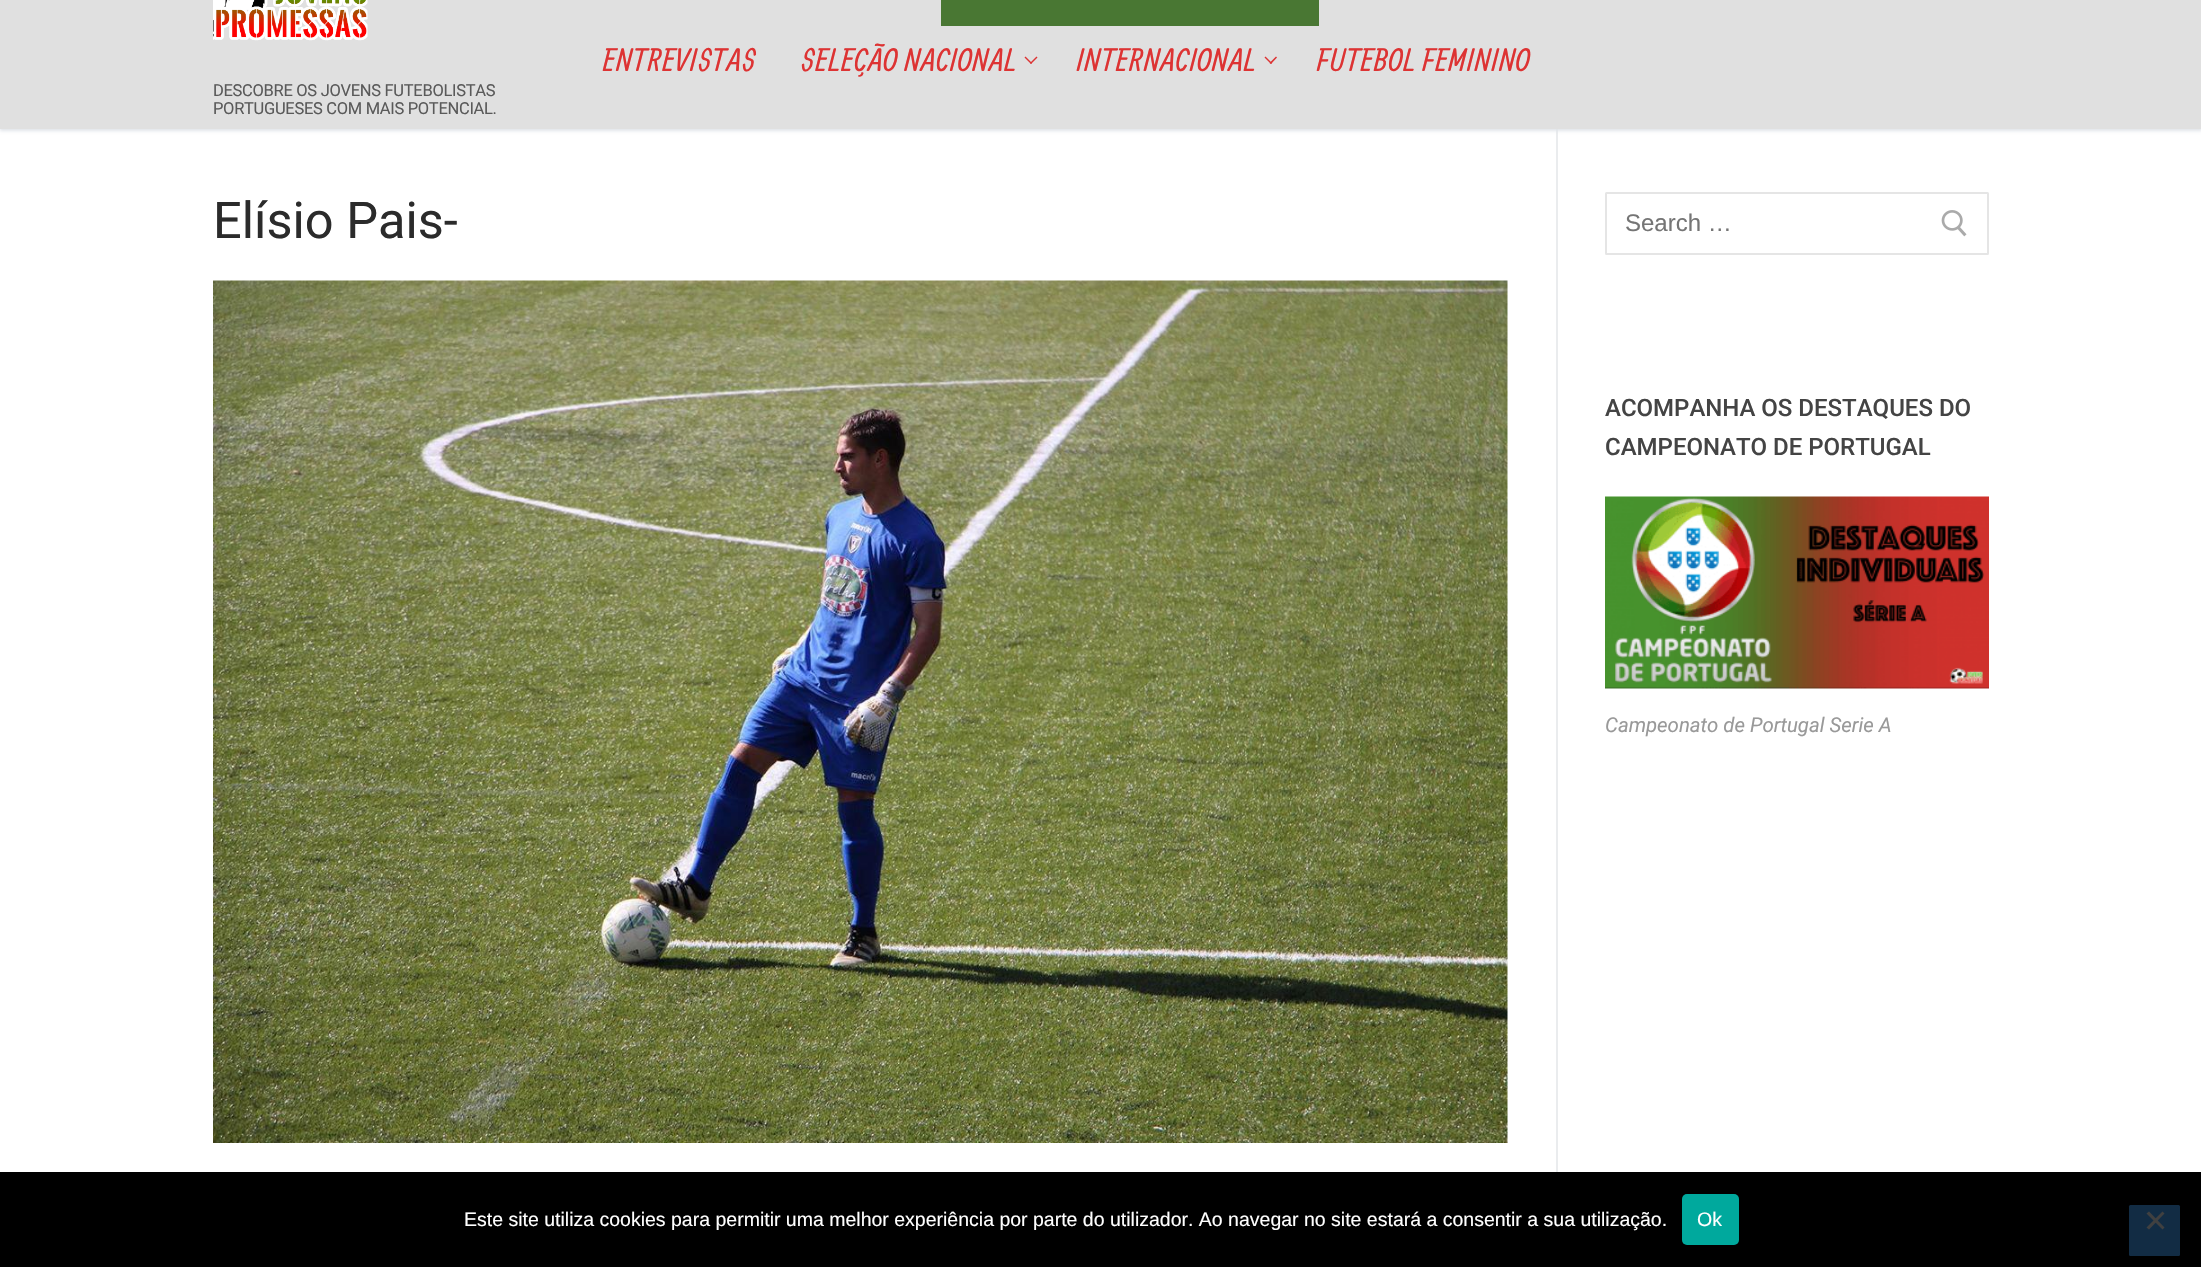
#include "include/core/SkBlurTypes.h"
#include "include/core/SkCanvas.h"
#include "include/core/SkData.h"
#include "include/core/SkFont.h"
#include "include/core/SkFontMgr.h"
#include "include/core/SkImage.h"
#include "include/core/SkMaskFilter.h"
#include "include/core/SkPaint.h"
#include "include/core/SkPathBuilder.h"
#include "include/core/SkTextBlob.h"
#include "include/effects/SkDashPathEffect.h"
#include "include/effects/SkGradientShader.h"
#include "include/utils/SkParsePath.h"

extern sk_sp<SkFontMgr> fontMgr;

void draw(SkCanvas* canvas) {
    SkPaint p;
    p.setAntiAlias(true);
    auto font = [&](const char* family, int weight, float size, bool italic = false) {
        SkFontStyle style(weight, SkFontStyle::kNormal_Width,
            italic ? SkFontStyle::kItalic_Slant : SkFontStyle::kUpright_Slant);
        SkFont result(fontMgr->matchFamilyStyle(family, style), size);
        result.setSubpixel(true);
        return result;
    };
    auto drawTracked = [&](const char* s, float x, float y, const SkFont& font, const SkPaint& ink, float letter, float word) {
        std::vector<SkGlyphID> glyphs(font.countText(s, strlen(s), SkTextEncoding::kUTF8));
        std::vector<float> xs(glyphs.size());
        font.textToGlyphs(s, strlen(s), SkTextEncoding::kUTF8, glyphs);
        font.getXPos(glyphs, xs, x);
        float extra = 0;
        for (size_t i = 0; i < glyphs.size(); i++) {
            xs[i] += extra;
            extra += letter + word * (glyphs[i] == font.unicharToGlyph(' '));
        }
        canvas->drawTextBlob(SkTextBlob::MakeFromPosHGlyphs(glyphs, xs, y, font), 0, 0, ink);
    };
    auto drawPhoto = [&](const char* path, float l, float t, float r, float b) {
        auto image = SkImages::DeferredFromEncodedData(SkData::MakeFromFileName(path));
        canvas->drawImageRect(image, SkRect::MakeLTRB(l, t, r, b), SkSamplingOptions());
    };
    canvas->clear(0xFFFFFFFF);
    p.setColor(0xFFEAECEE);
    canvas->drawRect(SkRect::MakeLTRB(1556, 129, 1558, 1172), p);
    p.setColor(0xFFE1E5EA);
    p.setMaskFilter(SkMaskFilter::MakeBlur(kNormal_SkBlurStyle, 1.5f));
    canvas->drawRect(SkRect::MakeLTRB(0, -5, 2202, 131), p);
    p.setMaskFilter(nullptr);
    p.setColor(0xFFE0E0E0);
    canvas->drawRect(SkRect::MakeLTRB(0, 0, 2201, 129), p);
    p.setColor(0xFF497733);
    canvas->drawRect(SkRect::MakeLTRB(941, 0, 1319, 26), p);
    auto font1 = font("Allan", 400, 31.5f);
    p.setColor(0xFFDD3333);
    drawTracked("ENTREVISTAS", 603, 71, font1, p, 0.6f, 0);
    drawTracked("SELEÇÃO NACIONAL", 801, 71, font1, p, 0.6f, 0);
    canvas->drawPath(SkPathBuilder().moveTo(1031, 64).lineTo(1024.5f, 57.5f).lineTo(1025.5f, 56.5f).lineTo(1032, 63).close().detach(), p);
    canvas->drawPath(SkPathBuilder().moveTo(1031, 64).lineTo(1030, 63).lineTo(1036.5f, 56.5f).lineTo(1037.5f, 57.5f).close().detach(), p);
    drawTracked("INTERNACIONAL", 1077, 71, font1, p, 0.6f, 0);
    canvas->drawPath(SkPathBuilder().moveTo(1271, 64).lineTo(1264.5f, 57.5f).lineTo(1265.5f, 56.5f).lineTo(1272, 63).close().detach(), p);
    canvas->drawPath(SkPathBuilder().moveTo(1271, 64).lineTo(1269.5f, 63).lineTo(1276, 56.5f).lineTo(1277, 57.5f).close().detach(), p);
    drawTracked("FUTEBOL FEMININO", 1317, 71, font1, p, 0.6f, 0);
    drawPhoto("media/1.png", 213, 0, 368, 41);
    auto font2 = font("Roboto", 400, 16.5f);
    p.setColor(0xFF5A5A5A);
    drawTracked("DESCOBRE OS JOVENS FUTEBOLISTAS", 213, 96, font2, p, -0.3f, 0);
    drawTracked("PORTUGUESES COM MAIS POTENCIAL.", 213, 114, font2, p, -0.3f, 0);
    auto font3 = font("Roboto", 400, 50.5f);
    p.setColor(0xFF2B2B2B);
    canvas->drawString("Elísio Pais-", 213, 238, font3, p);
    drawPhoto("media/2.png", 213, 280, 1508, 1143);
    p.setStyle(SkPaint::kStroke_Style);
    p.setStrokeWidth(2);
    p.setColor(0xFFE5E5E5);
    canvas->drawRoundRect(SkRect::MakeLTRB(1606, 193, 1988, 254), 0.5f, 0.5f, p);
    auto font4 = font("Liberation Sans", 400, 24);
    p.setStyle(SkPaint::kFill_Style);
    p.setColor(0xFF757575);
    canvas->drawString("Search …", 1625, 231, font4, p);
    drawPhoto("media/3.png", 1941, 210, 1967, 237);
    auto font5 = font("Roboto", 500, 24);
    p.setColor(0xFF444444);
    canvas->drawString("ACOMPANHA OS DESTAQUES DO", 1605, 416, font5, p);
    canvas->drawString("CAMPEONATO DE PORTUGAL", 1605, 455, font5, p);
    drawPhoto("media/4.png", 1605, 496, 1989, 689);
    auto font6 = font("Roboto", 400, 20.4f, true);
    p.setColor(0xFF999999);
    canvas->drawString("Campeonato de Portugal Serie A", 1605, 732, font6, p);
    p.setColor(0xFF000000);
    canvas->drawRect(SkRect::MakeLTRB(0, 1172, 2201, 1267), p);
    auto font7 = font("Liberation Sans", 400, 19.5f);
    p.setColor(0xFFFFFFFF);
    canvas->drawString("Este site utiliza cookies para permitir uma melhor experiência por parte do utilizador. Ao navegar no site estará a consentir a sua utilização.", 464, 1226, font7, p);
    p.setColor(0xFF00A99D);
    canvas->drawRoundRect(SkRect::MakeLTRB(1682, 1194, 1739, 1245), 5, 5, p);
    p.setColor(0xFFFFFFFF);
    canvas->drawString("Ok", 1697, 1226, font7, p);
    p.setColor(0xFF122C44);
    canvas->drawRoundRect(SkRect::MakeLTRB(2129, 1205, 2180, 1256), 1.5f, 1.5f, p);
    p.setColor(0xFF404040);
    canvas->drawPath(SkPathBuilder().moveTo(2162.5f, 1211.5f).lineTo(2164.5f, 1213.5f).lineTo(2149, 1229.5f).lineTo(2146.5f, 1227.5f).close().detach(), p);
    canvas->drawPath(SkPathBuilder().moveTo(2146.5f, 1213.5f).lineTo(2149, 1211.5f).lineTo(2164.5f, 1227.5f).lineTo(2162.5f, 1229.5f).close().detach(), p);
}
